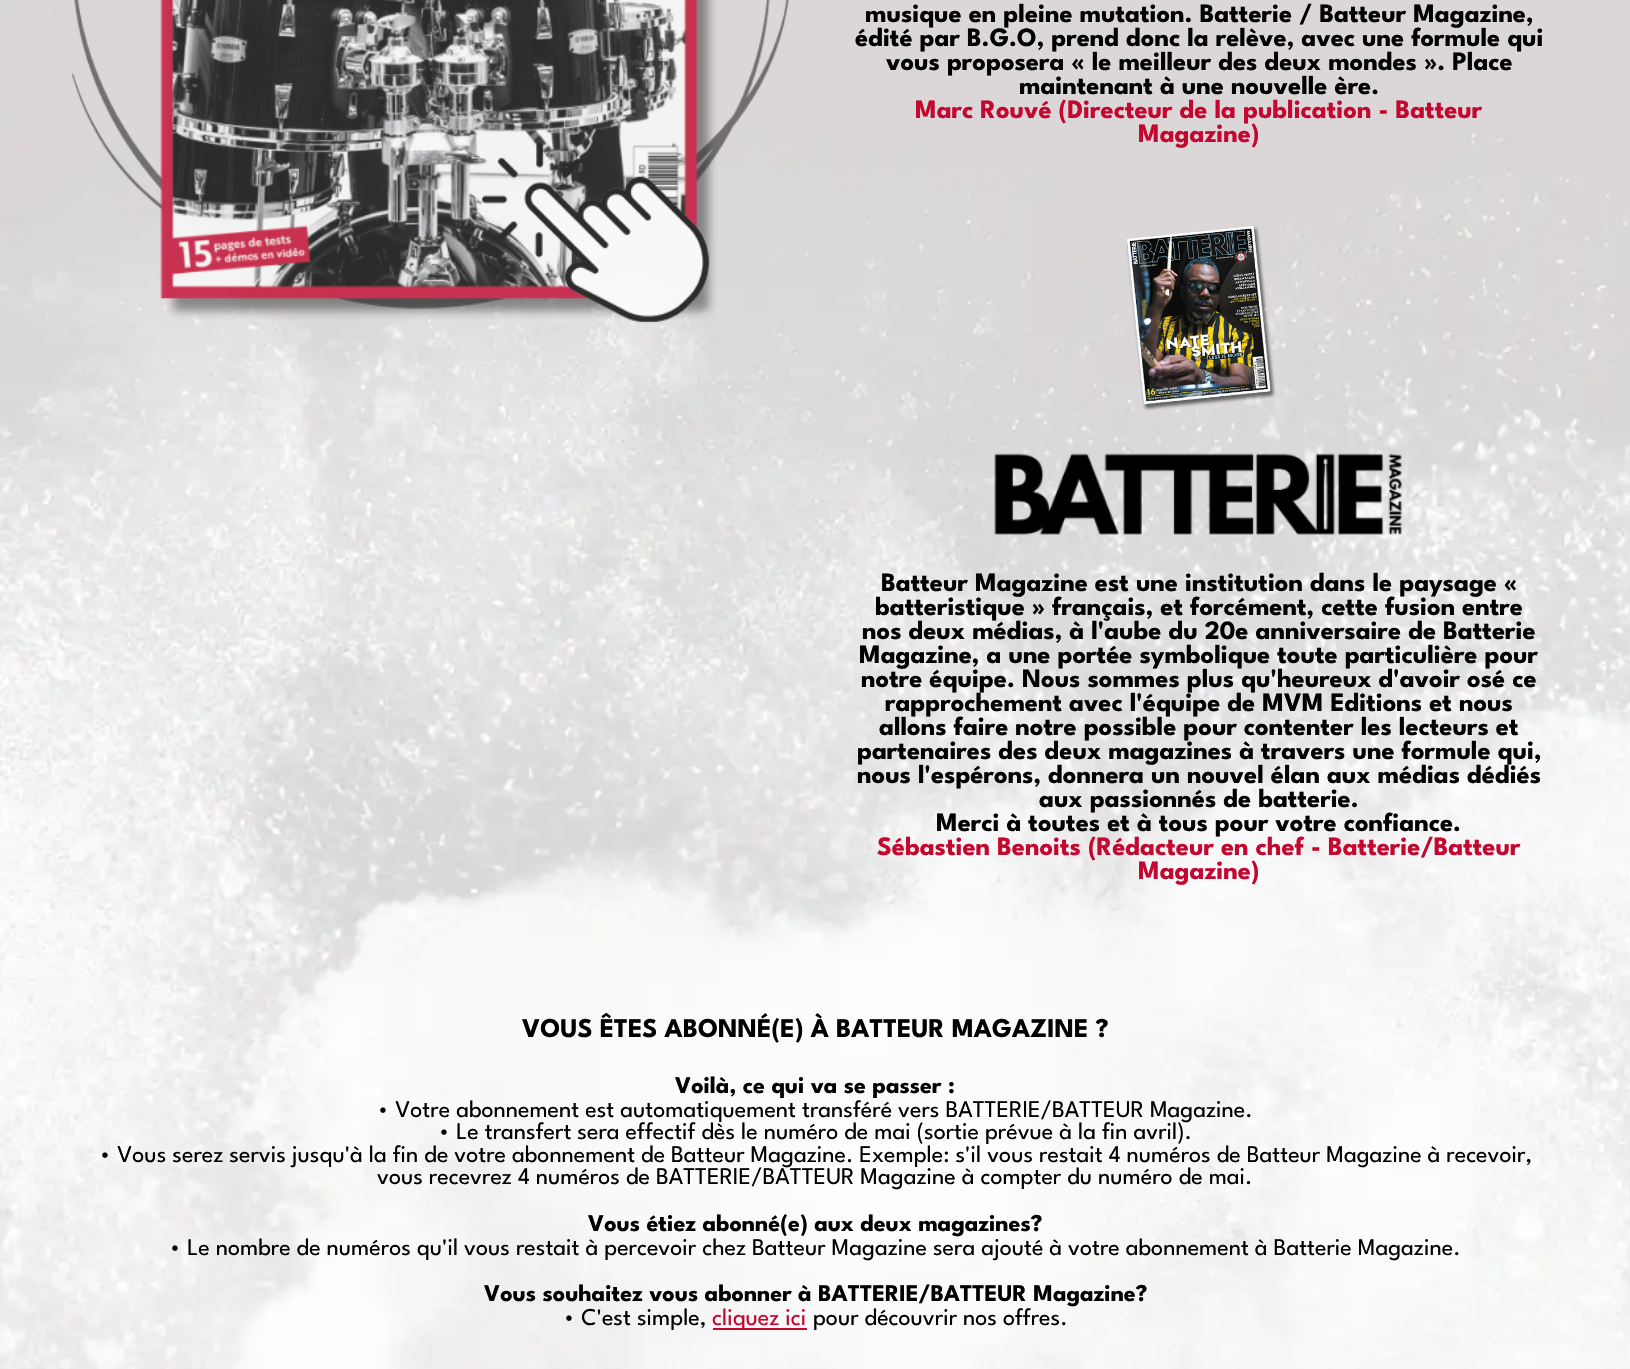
#include "include/core/SkBlurTypes.h"
#include "include/core/SkCanvas.h"
#include "include/core/SkData.h"
#include "include/core/SkFont.h"
#include "include/core/SkFontMgr.h"
#include "include/core/SkImage.h"
#include "include/core/SkMaskFilter.h"
#include "include/core/SkPaint.h"
#include "include/core/SkPathBuilder.h"
#include "include/core/SkTextBlob.h"
#include "include/effects/SkDashPathEffect.h"
#include "include/effects/SkGradientShader.h"
#include "include/utils/SkParsePath.h"

extern sk_sp<SkFontMgr> fontMgr;

void draw(SkCanvas* canvas) {
    SkPaint p;
    p.setAntiAlias(true);
    auto font = [&](const char* family, int weight, float size, bool italic = false) {
        SkFontStyle style(weight, SkFontStyle::kNormal_Width,
            italic ? SkFontStyle::kItalic_Slant : SkFontStyle::kUpright_Slant);
        SkFont result(fontMgr->matchFamilyStyle(family, style), size);
        result.setSubpixel(true);
        return result;
    };
    auto drawPhoto = [&](const char* path, float l, float t, float r, float b) {
        auto image = SkImages::DeferredFromEncodedData(SkData::MakeFromFileName(path));
        canvas->drawImageRect(image, SkRect::MakeLTRB(l, t, r, b), SkSamplingOptions());
    };
    canvas->clear(0xFFFFFFFF);
    drawPhoto("media/1.png", 0, 0, 1630, 1369);
    drawPhoto("media/2.png", 72, 0, 790, 323);
    auto font1 = font("League Spartan", 700, 26.4f);
    p.setColor(0xFF000000);
    {
        const struct { const char* s; float x, y; } items[] = {
            {"musique en pleine mutation. Batterie / Batteur Magazine,", 865, 22},
            {"édité par B.G.O, prend donc la relève, avec une formule qui", 855, 46},
            {"vous proposera « le meilleur des deux mondes ». Place", 886, 70},
            {"maintenant à une nouvelle ère.", 1019, 94},
        };
        for (auto [s, x, y] : items) {
            canvas->drawString(s, x, y, font1, p);
        }
    }
    p.setColor(0xFFC4072F);
    canvas->drawString("Marc Rouvé (Directeur de la publication - Batteur", 915, 118, font1, p);
    canvas->drawString("Magazine)", 1138, 142, font1, p);
    drawPhoto("media/3.png", 1126, 225, 1276, 411);
    drawPhoto("media/4.png", 994, 453, 1402, 535);
    p.setColor(0xFF000000);
    {
        const struct { const char* s; float x, y; } items[] = {
            {"Batteur Magazine est une institution dans le paysage «", 881, 591},
            {"batteristique » français, et forcément, cette fusion entre", 875, 615},
            {"nos deux médias, à l'aube du 20e anniversaire de Batterie", 862, 639},
            {"Magazine, a une portée symbolique toute particulière pour", 859, 663},
            {"notre équipe. Nous sommes plus qu'heureux d'avoir osé ce", 861, 687},
            {"rapprochement avec l'équipe de MVM Editions et nous", 885, 711},
            {"allons faire notre possible pour contenter les lecteurs et", 879, 735},
            {"partenaires des deux magazines à travers une formule qui,", 857, 759},
            {"nous l'espérons, donnera un nouvel élan aux médias dédiés", 857, 783},
            {"aux passionnés de batterie.", 1039, 807},
            {"Merci à toutes et à tous pour votre confiance.", 936, 831},
        };
        for (auto [s, x, y] : items) {
            canvas->drawString(s, x, y, font1, p);
        }
    }
    p.setColor(0xFFC4072F);
    canvas->drawString("Sébastien Benoits (Rédacteur en chef - Batterie/Batteur", 877, 855, font1, p);
    canvas->drawString("Magazine)", 1138, 879, font1, p);
    auto font2 = font("League Spartan", 700, 27);
    p.setColor(0xFF000000);
    canvas->drawString("VOUS ÊTES ABONNÉ(E) À BATTEUR MAGAZINE ?", 522, 1037, font2, p);
    auto font3 = font("League Spartan", 700, 24);
    canvas->drawString("Voilà, ce qui va se passer :", 675, 1093, font3, p);
    auto font4 = font("League Spartan", 400, 24);
    {
        const struct { const char* s; float x, y; } items[] = {
            {"• Votre abonnement est automatiquement transféré vers BATTERIE/BATTEUR Magazine.", 377, 1117},
            {"• Le transfert sera effectif dès le numéro de mai (sortie prévue à la fin avril).", 438, 1139},
            {"• Vous serez servis jusqu'à la fin de votre abonnement de Batteur Magazine. Exemple: s'il vous restait 4 numéros de Batteur Magazine à recevoir,", 99, 1162},
            {"vous recevrez 4 numéros de BATTERIE/BATTEUR Magazine à compter du numéro de mai.", 377, 1184},
        };
        for (auto [s, x, y] : items) {
            canvas->drawString(s, x, y, font4, p);
        }
    }
    canvas->drawString("Vous étiez abonné(e) aux deux magazines?", 588, 1231, font3, p);
    canvas->drawString("• Le nombre de numéros qu'il vous restait à percevoir chez Batteur Magazine sera ajouté à votre abonnement à Batterie Magazine.", 169, 1255, font4, p);
    canvas->drawString("Vous souhaitez vous abonner à BATTERIE/BATTEUR Magazine?", 484, 1301, font3, p);
    canvas->drawString("• C'est simple,", 563, 1325, font4, p);
    p.setColor(0xFFC4072F);
    canvas->drawRect(SkRect::MakeLTRB(713, 1328, 807, 1330), p);
    canvas->drawString("cliquez ici", 712, 1325, font4, p);
    p.setColor(0xFF000000);
    canvas->drawString("pour découvrir nos offres.", 813, 1325, font4, p);
}
